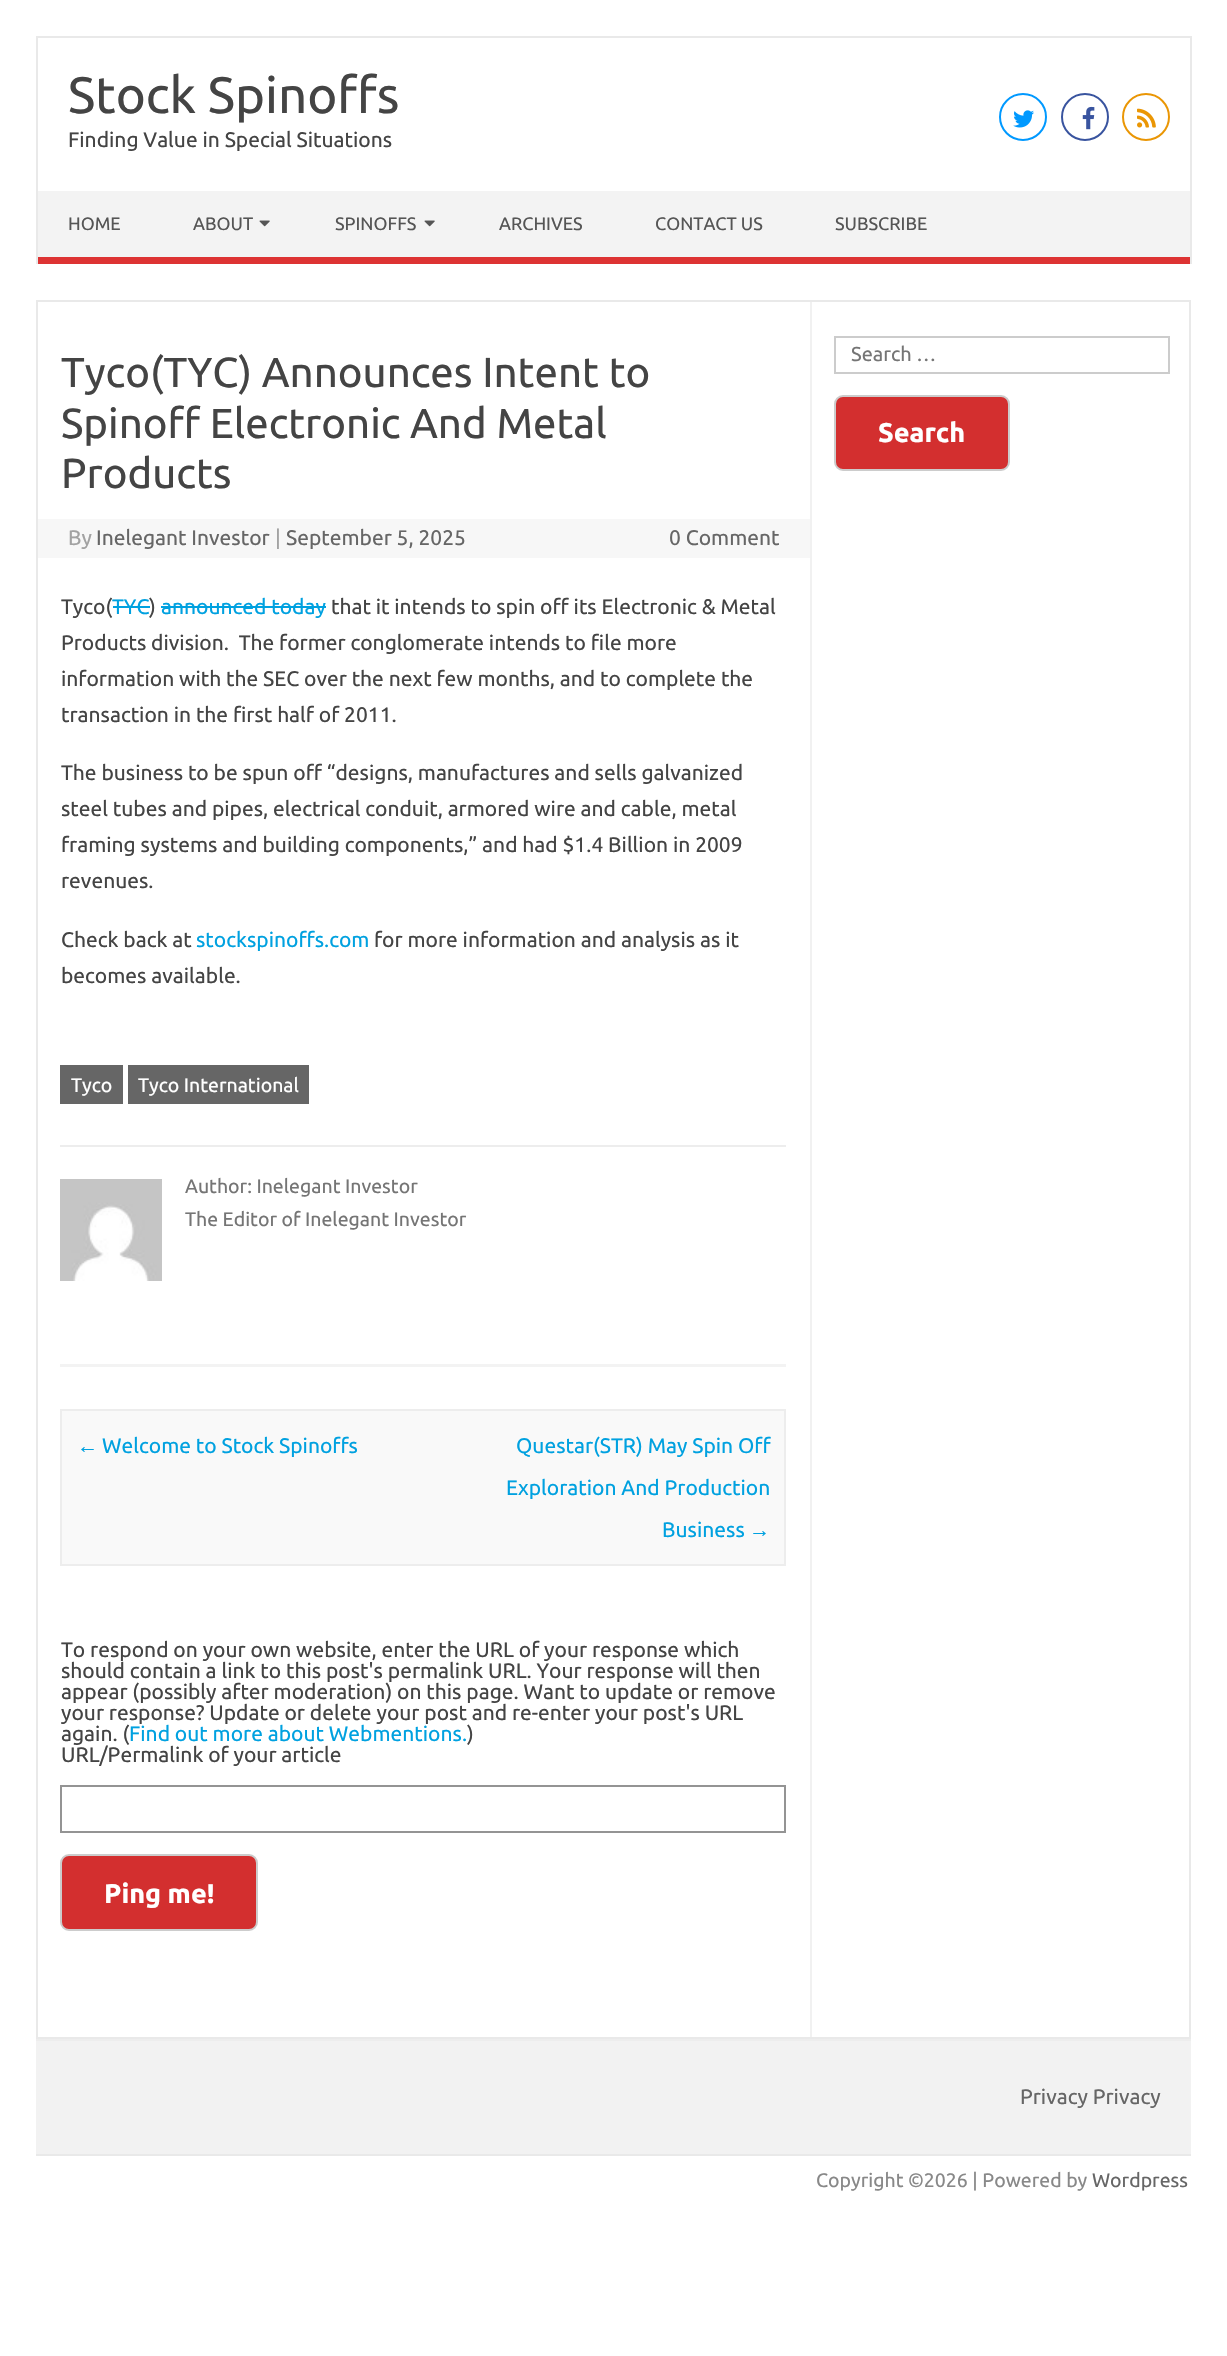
#include "include/core/SkBlurTypes.h"
#include "include/core/SkCanvas.h"
#include "include/core/SkData.h"
#include "include/core/SkFont.h"
#include "include/core/SkFontMgr.h"
#include "include/core/SkImage.h"
#include "include/core/SkMaskFilter.h"
#include "include/core/SkPaint.h"
#include "include/core/SkPathBuilder.h"
#include "include/core/SkTextBlob.h"
#include "include/effects/SkDashPathEffect.h"
#include "include/effects/SkGradientShader.h"
#include "include/utils/SkParsePath.h"

extern sk_sp<SkFontMgr> fontMgr;

void draw(SkCanvas* canvas) {
    SkPaint p;
    p.setAntiAlias(true);
    auto font = [&](const char* family, int weight, float size, bool italic = false) {
        SkFontStyle style(weight, SkFontStyle::kNormal_Width,
            italic ? SkFontStyle::kItalic_Slant : SkFontStyle::kUpright_Slant);
        SkFont result(fontMgr->matchFamilyStyle(family, style), size);
        result.setSubpixel(true);
        return result;
    };
    auto drawPhoto = [&](const char* path, float l, float t, float r, float b) {
        auto image = SkImages::DeferredFromEncodedData(SkData::MakeFromFileName(path));
        canvas->drawImageRect(image, SkRect::MakeLTRB(l, t, r, b), SkSamplingOptions());
    };
    canvas->clear(0xFFFFFFFF);
    {
        const struct { float l, t, r, b; SkColor color; } items[] = {
            {36, 36, 1191, 38, 0xFFE9E9E9},
            {1190, 36, 1192, 264, 0xFFE9E9E9},
            {36, 36, 38, 264, 0xFFE9E9E9},
        };
        for (auto [l, t, r, b, color] : items) {
            p.setColor(color);
            canvas->drawRect(SkRect::MakeLTRB(l, t, r, b), p);
        }
    }
    auto font1 = font("Ubuntu", 400, 51);
    p.setColor(0xFF444444);
    canvas->drawString("Stock Spinoffs", 68, 113, font1, p);
    auto font2 = font("Ubuntu", 400, 21);
    canvas->drawString("Finding Value in Special Situations", 68, 147, font2, p);
    p.setStyle(SkPaint::kStroke_Style);
    p.setStrokeWidth(2);
    p.setColor(0xFF0099FF);
    canvas->drawCircle(1023, 117, 23, p);
    drawPhoto("media/1.png", 1013, 110, 1034, 128);
    p.setColor(0xFF39549F);
    canvas->drawCircle(1085, 117, 23, p);
    drawPhoto("media/2.png", 1082, 106, 1095, 130);
    p.setColor(0xFFEA9604);
    canvas->drawCircle(1146, 117, 23, p);
    drawPhoto("media/3.png", 1137, 108, 1156, 128);
    p.setStyle(SkPaint::kFill_Style);
    p.setColor(0xFFF3F3F3);
    canvas->drawRect(SkRect::MakeLTRB(38, 191, 1190, 257), p);
    p.setColor(0xFFDD3333);
    canvas->drawRect(SkRect::MakeLTRB(38, 257, 1190, 264), p);
    auto font3 = font("Ubuntu", 400, 18);
    p.setColor(0xFF555555);
    canvas->drawString("HOME", 68, 230, font3, p);
    canvas->drawString("ABOUT", 193, 230, font3, p);
    drawPhoto("media/4.png", 259, 220, 270, 227);
    canvas->drawString("SPINOFFS", 335, 230, font3, p);
    drawPhoto("media/4.png", 424, 220, 435, 227);
    {
        const struct { const char* s; float x, y; } items[] = {
            {"ARCHIVES", 499, 230},
            {"CONTACT US", 655, 230},
            {"SUBSCRIBE", 835, 230},
        };
        for (auto [s, x, y] : items) {
            canvas->drawString(s, x, y, font3, p);
        }
    }
    p.setStyle(SkPaint::kStroke_Style);
    p.setColor(0xFFE9E9E9);
    canvas->drawRect(SkRect::MakeLTRB(37, 301, 1190, 2038), p);
    p.setStyle(SkPaint::kFill_Style);
    p.setColor(0xFFF1F1F1);
    canvas->drawRect(SkRect::MakeLTRB(810, 302, 812, 2037), p);
    p.setColor(0xFFF3F3F3);
    canvas->drawRect(SkRect::MakeLTRB(60, 1364, 786, 1367), p);
    auto font4 = font("Ubuntu", 400, 42);
    p.setColor(0xFF444444);
    {
        const struct { const char* s; float x, y; } items[] = {
            {"Tyco(TYC) Announces Intent to", 61, 387},
            {"Spinoff Electronic And Metal", 61, 438},
            {"Products", 61, 488},
        };
        for (auto [s, x, y] : items) {
            canvas->drawString(s, x, y, font4, p);
        }
    }
    p.setColor(0xFFF7F7F7);
    canvas->drawRect(SkRect::MakeLTRB(38, 519, 810, 558), p);
    p.setColor(0xFFA2A2A2);
    canvas->drawString("By", 68, 545, font2, p);
    p.setColor(0xFF666666);
    canvas->drawString("Inelegant Investor", 96, 545, font2, p);
    p.setColor(0xFFA2A2A2);
    canvas->drawString("|", 275, 545, font2, p);
    p.setColor(0xFF666666);
    canvas->drawString("September 5, 2025", 286, 545, font2, p);
    canvas->drawString("0 Comment", 669, 545, font2, p);
    p.setColor(0xFF444444);
    canvas->drawString("Tyco(", 61, 614, font2, p);
    p.setColor(0xFF00A1E0);
    canvas->drawString("TYC", 112, 614, font2, p);
    canvas->drawRect(SkRect::MakeLTRB(113, 606, 150, 608), p);
    p.setColor(0xFF444444);
    canvas->drawString(")", 149, 614, font2, p);
    p.setColor(0xFF00A1E0);
    canvas->drawString("announced today", 161, 614, font2, p);
    canvas->drawRect(SkRect::MakeLTRB(161, 606, 326, 608), p);
    p.setColor(0xFF444444);
    {
        const struct { const char* s; float x, y; } items[] = {
            {"that it intends to spin off its Electronic & Metal", 331, 614},
            {"Products division.  The former conglomerate intends to file more", 61, 650},
            {"information with the SEC over the next few months, and to complete the", 61, 686},
            {"transaction in the first half of 2011.", 61, 722},
            {"The business to be spun off “designs, manufactures and sells galvanized", 61, 780},
            {"steel tubes and pipes, electrical conduit, armored wire and cable, metal", 61, 816},
            {"framing systems and building components,” and had $1.4 Billion in 2009", 61, 852},
            {"revenues.", 61, 888},
            {"Check back at", 61, 947},
        };
        for (auto [s, x, y] : items) {
            canvas->drawString(s, x, y, font2, p);
        }
    }
    p.setColor(0xFF00A1E0);
    canvas->drawString("stockspinoffs.com", 196, 947, font2, p);
    p.setColor(0xFF444444);
    canvas->drawString("for more information and analysis as it", 374, 947, font2, p);
    canvas->drawString("becomes available.", 61, 983, font2, p);
    p.setColor(0xFF666666);
    canvas->drawRect(SkRect::MakeLTRB(60, 1065, 123, 1104), p);
    auto font5 = font("Ubuntu", 400, 19.5f);
    p.setColor(0xFFFFFFFF);
    canvas->drawString("Tyco", 71, 1092, font5, p);
    p.setColor(0xFF666666);
    canvas->drawRect(SkRect::MakeLTRB(128, 1065, 309, 1104), p);
    p.setColor(0xFFFFFFFF);
    canvas->drawString("Tyco International", 138, 1092, font5, p);
    p.setColor(0xFFEDEDED);
    canvas->drawRect(SkRect::MakeLTRB(60, 1145, 786, 1147), p);
    drawPhoto("media/5.png", 60, 1179, 162, 1281);
    p.setColor(0xFF757575);
    canvas->drawString("Author: Inelegant Investor", 185, 1193, font5, p);
    canvas->drawString("The Editor of Inelegant Investor", 185, 1226, font5, p);
    p.setColor(0xFFF9F9F9);
    canvas->drawRect(SkRect::MakeLTRB(61, 1410, 785, 1565), p);
    p.setStyle(SkPaint::kStroke_Style);
    p.setColor(0xFFEDEDED);
    canvas->drawRect(SkRect::MakeLTRB(61, 1410, 785, 1565), p);
    auto font6 = font("Liberation Sans", 400, 21);
    p.setStyle(SkPaint::kFill_Style);
    p.setColor(0xFF00A1E0);
    canvas->drawString("←", 77, 1453, font6, p);
    {
        const struct { const char* s; float x, y; } items[] = {
            {"Welcome to Stock Spinoffs", 102, 1453},
            {"Questar(STR) May Spin Off", 516, 1453},
            {"Exploration And Production", 506, 1495},
            {"Business", 662, 1537},
        };
        for (auto [s, x, y] : items) {
            canvas->drawString(s, x, y, font2, p);
        }
    }
    canvas->drawString("→", 749, 1537, font6, p);
    p.setColor(0xFF444444);
    {
        const struct { const char* s; float x, y; } items[] = {
            {"To respond on your own website, enter the URL of your response which", 61, 1657},
            {"should contain a link to this post's permalink URL. Your response will then", 61, 1678},
            {"appear (possibly after moderation) on this page. Want to update or remove", 61, 1699},
            {"your response? Update or delete your post and re-enter your post's URL", 61, 1720},
            {"again. (", 61, 1741},
        };
        for (auto [s, x, y] : items) {
            canvas->drawString(s, x, y, font2, p);
        }
    }
    p.setColor(0xFF00A1E0);
    canvas->drawString("Find out more about Webmentions.", 129, 1741, font2, p);
    p.setColor(0xFF444444);
    canvas->drawString(")", 467, 1741, font2, p);
    canvas->drawString("URL/Permalink of your article", 61, 1762, font2, p);
    p.setStyle(SkPaint::kStroke_Style);
    p.setColor(0xFF949494);
    canvas->drawRect(SkRect::MakeLTRB(61, 1786, 785, 1832), p);
    p.setStyle(SkPaint::kFill_Style);
    p.setColor(0xFFD32F2F);
    canvas->drawRoundRect(SkRect::MakeLTRB(61, 1855, 257, 1930), 8, 8, p);
    p.setStyle(SkPaint::kStroke_Style);
    p.setColor(0xFFCCCCCC);
    canvas->drawRoundRect(SkRect::MakeLTRB(61, 1855, 257, 1930), 8, 8, p);
    auto font7 = font("Ubuntu", 700, 27);
    p.setStyle(SkPaint::kFill_Style);
    p.setColor(0xFFFFFFFF);
    canvas->drawString("Ping me!", 104, 1903, font7, p);
    p.setStyle(SkPaint::kStroke_Style);
    p.setColor(0xFFCCCCCC);
    canvas->drawRect(SkRect::MakeLTRB(835, 337, 1169, 373), p);
    auto font8 = font("Ubuntu", 400, 20);
    p.setStyle(SkPaint::kFill_Style);
    p.setColor(0xFF757575);
    canvas->drawString("Search …", 851, 361, font8, p);
    p.setColor(0xFFD32F2F);
    canvas->drawRoundRect(SkRect::MakeLTRB(835, 396, 1009, 470), 8, 8, p);
    p.setStyle(SkPaint::kStroke_Style);
    p.setColor(0xFFCCCCCC);
    canvas->drawRoundRect(SkRect::MakeLTRB(835, 396, 1009, 470), 8, 8, p);
    p.setStyle(SkPaint::kFill_Style);
    p.setColor(0xFFFFFFFF);
    canvas->drawString("Search", 878, 442, font7, p);
    {
        const struct { float l, t, r, b; SkColor color; } items[] = {
            {36, 2041, 1191, 2154, 0xFFF2F2F2},
            {36, 2039, 1191, 2041, 0xFFEDEDED},
            {36, 2154, 1191, 2156, 0xFFE9E9E9},
        };
        for (auto [l, t, r, b, color] : items) {
            p.setColor(color);
            canvas->drawRect(SkRect::MakeLTRB(l, t, r, b), p);
        }
    }
    p.setColor(0xFF666666);
    canvas->drawString("Privacy Privacy", 1020, 2104, font2, p);
    p.setColor(0xFF888888);
    canvas->drawString("Copyright ©2026 | Powered by", 816, 2187, font5, p);
    p.setColor(0xFF666666);
    canvas->drawString("Wordpress", 1092, 2187, font5, p);
}
